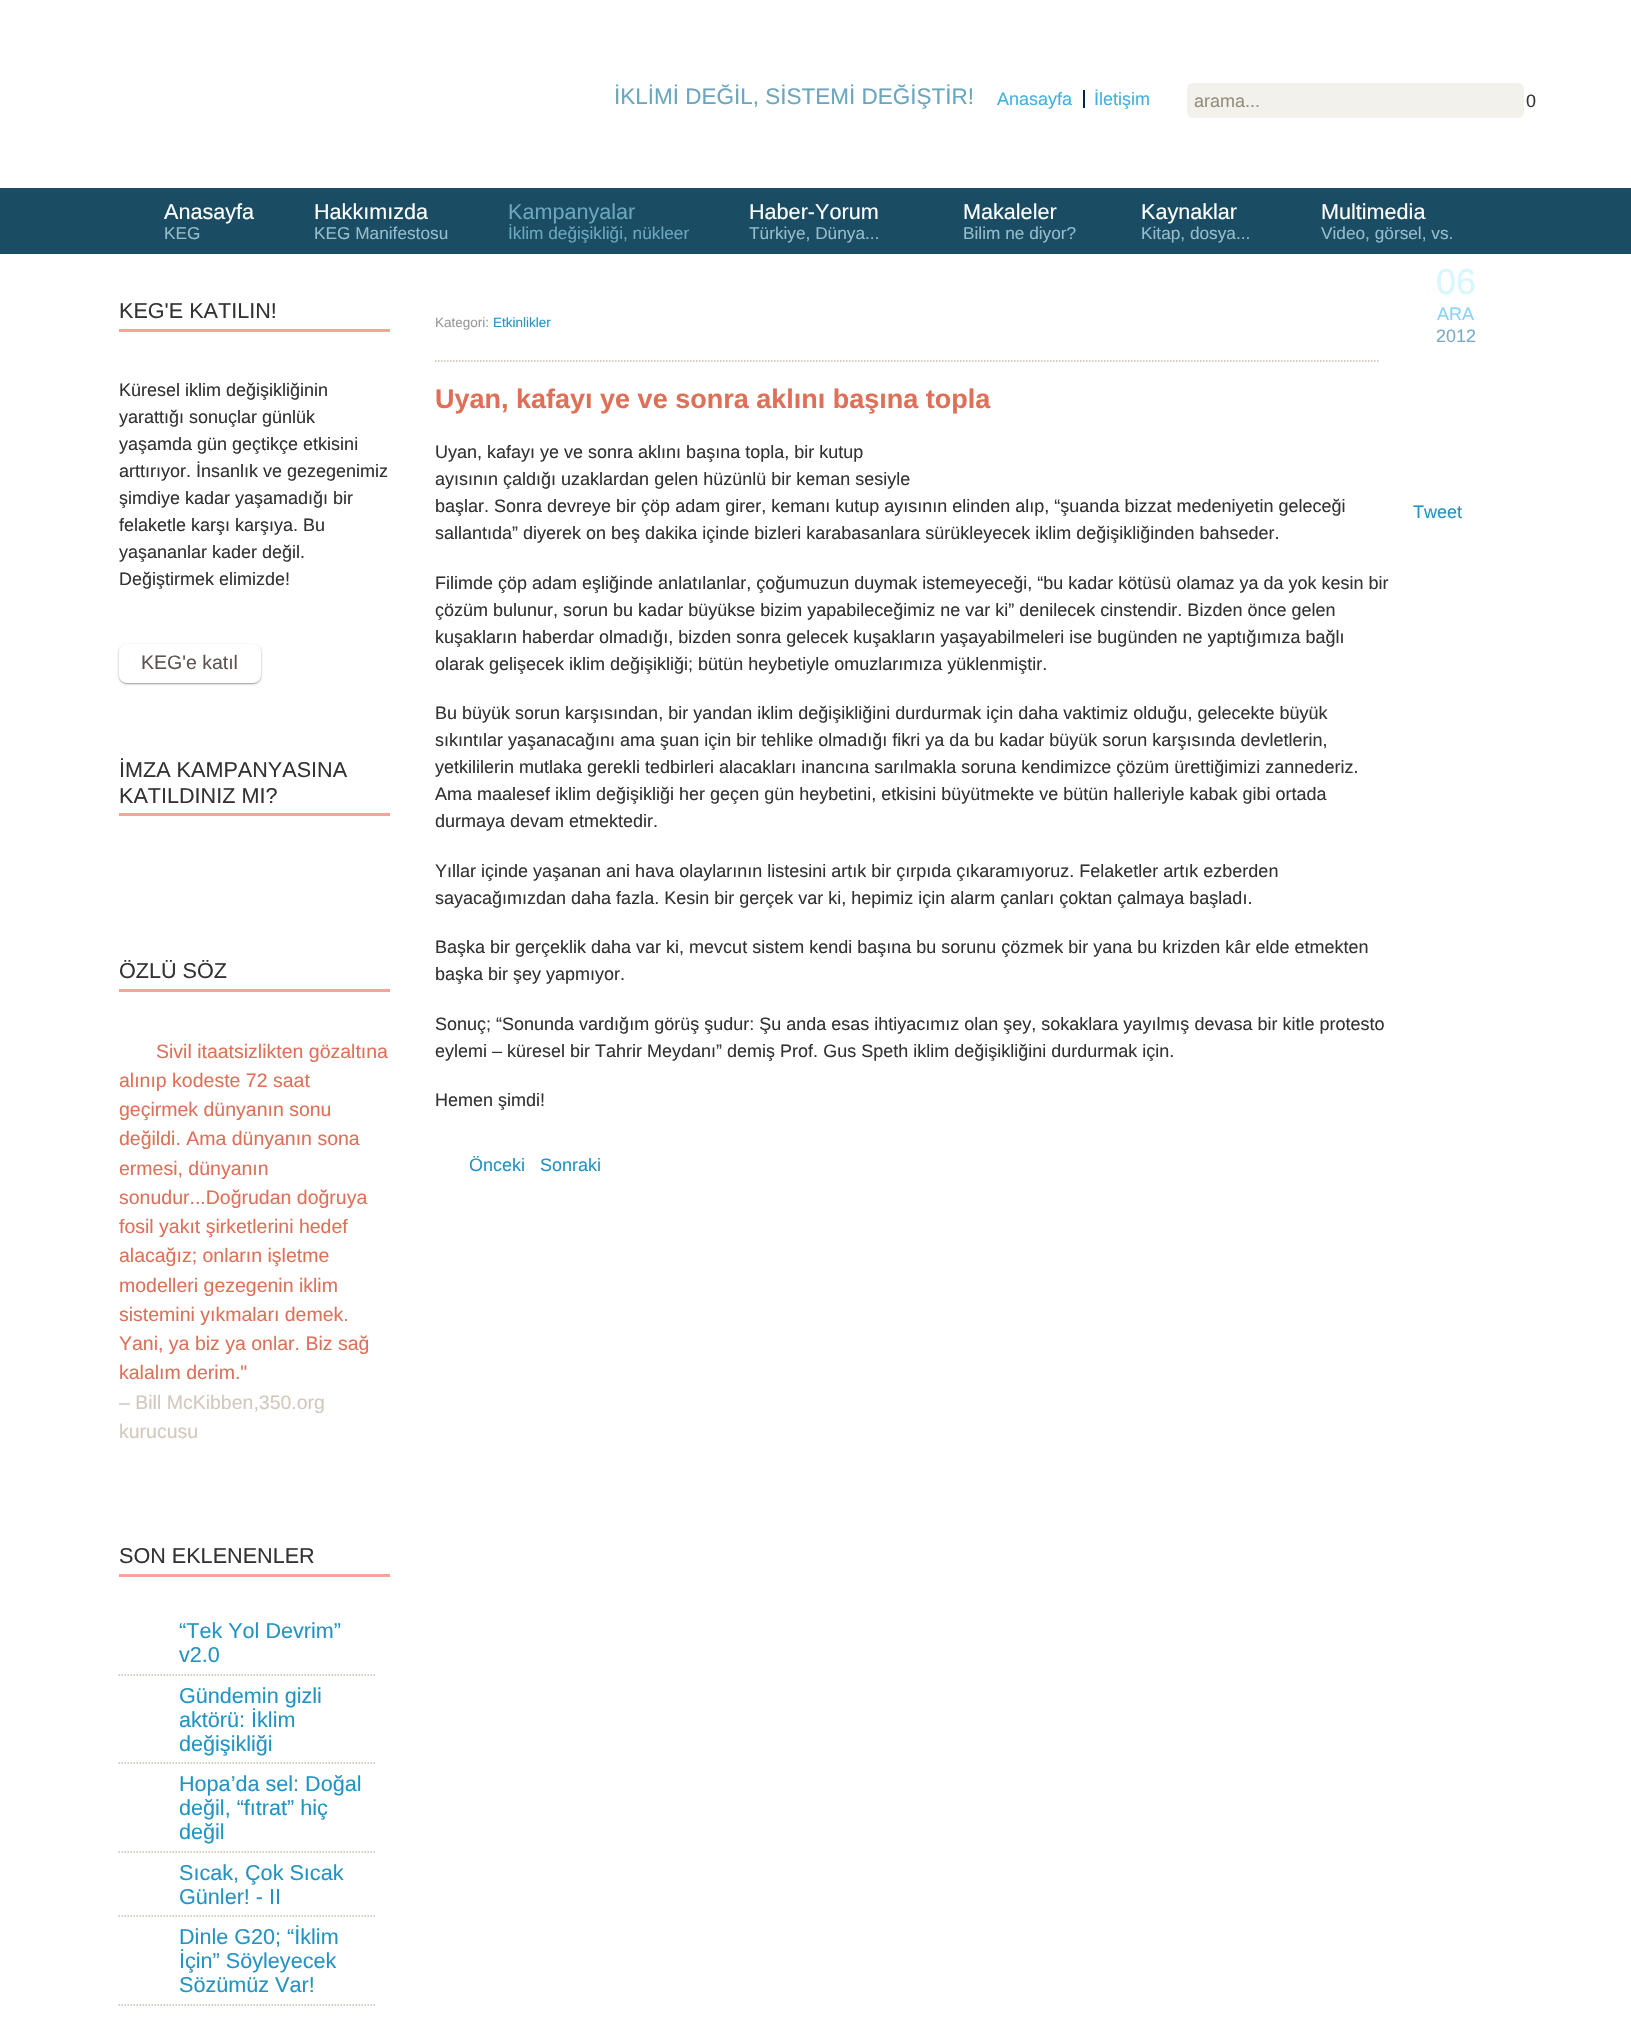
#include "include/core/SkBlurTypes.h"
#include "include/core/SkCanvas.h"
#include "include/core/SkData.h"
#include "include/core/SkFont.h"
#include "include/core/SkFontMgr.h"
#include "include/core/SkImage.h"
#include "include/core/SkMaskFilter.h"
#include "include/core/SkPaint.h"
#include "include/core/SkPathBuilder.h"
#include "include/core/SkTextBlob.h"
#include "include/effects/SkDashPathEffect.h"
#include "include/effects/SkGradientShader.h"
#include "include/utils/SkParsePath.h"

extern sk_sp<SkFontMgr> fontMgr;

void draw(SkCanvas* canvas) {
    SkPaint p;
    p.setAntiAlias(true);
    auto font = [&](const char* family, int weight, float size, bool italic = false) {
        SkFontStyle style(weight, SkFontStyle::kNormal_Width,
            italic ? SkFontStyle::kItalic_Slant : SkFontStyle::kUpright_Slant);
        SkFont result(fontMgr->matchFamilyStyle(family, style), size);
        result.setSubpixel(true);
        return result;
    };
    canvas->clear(0xFFFFFFFF);
    auto font1 = font("Liberation Sans", 400, 22.5f);
    p.setColor(0xFF6BA5BE);
    canvas->drawString("İKLİMİ DEĞİL, SİSTEMİ DEĞİŞTİR!", 614, 104, font1, p);
    auto font2 = font("Liberation Sans", 400, 18);
    p.setColor(0xFF43B0DE);
    canvas->drawString("Anasayfa", 997, 105, font2, p);
    p.setColor(0xFF022648);
    canvas->drawRect(SkRect::MakeLTRB(1083, 90, 1085, 108), p);
    p.setColor(0xFF43B0DE);
    canvas->drawString("İletişim", 1094, 105, font2, p);
    p.setColor(0xFFF2F1EB);
    canvas->drawRoundRect(SkRect::MakeLTRB(1186, 82, 1525, 119), 7, 7, p);
    p.setStyle(SkPaint::kStroke_Style);
    p.setStrokeWidth(2);
    p.setColor(0xFFFFFFFF);
    canvas->drawRoundRect(SkRect::MakeLTRB(1186, 82, 1525, 119), 7, 7, p);
    p.setStyle(SkPaint::kFill_Style);
    p.setColor(0xFF978D7F);
    canvas->drawString("arama...", 1194, 107, font2, p);
    p.setColor(0xFF333333);
    canvas->drawString("0", 1526, 107, font2, p);
    p.setColor(0xFF1A4D63);
    canvas->drawRect(SkRect::MakeLTRB(0, 188, 1631, 254), p);
    auto font3 = font("Liberation Sans", 400, 21.6f);
    p.setColor(0xFFFFFFFF);
    canvas->drawString("Anasayfa", 164, 219, font3, p);
    auto font4 = font("Liberation Sans", 400, 17.25f);
    p.setColor(0xFF96BBCB);
    canvas->drawString("KEG", 164, 239, font4, p);
    p.setColor(0xFFFFFFFF);
    canvas->drawString("Hakkımızda", 314, 219, font3, p);
    p.setColor(0xFF96BBCB);
    canvas->drawString("KEG Manifestosu", 314, 239, font4, p);
    p.setColor(0xFF6BA5BE);
    canvas->drawString("Kampanyalar", 508, 219, font3, p);
    canvas->drawString("İklim değişikliği, nükleer", 508, 239, font4, p);
    p.setColor(0xFFFFFFFF);
    canvas->drawString("Haber-Yorum", 749, 219, font3, p);
    p.setColor(0xFF96BBCB);
    canvas->drawString("Türkiye, Dünya...", 749, 239, font4, p);
    p.setColor(0xFFFFFFFF);
    canvas->drawString("Makaleler", 963, 219, font3, p);
    p.setColor(0xFF96BBCB);
    canvas->drawString("Bilim ne diyor?", 963, 239, font4, p);
    p.setColor(0xFFFFFFFF);
    canvas->drawString("Kaynaklar", 1141, 219, font3, p);
    p.setColor(0xFF96BBCB);
    canvas->drawString("Kitap, dosya...", 1141, 239, font4, p);
    p.setColor(0xFFFFFFFF);
    canvas->drawString("Multimedia", 1321, 219, font3, p);
    p.setColor(0xFF96BBCB);
    canvas->drawString("Video, görsel, vs.", 1321, 239, font4, p);
    p.setColor(0xFFF5A594);
    canvas->drawRect(SkRect::MakeLTRB(119, 329, 390, 332), p);
    p.setColor(0xFF333333);
    canvas->drawString("KEG'E KATILIN!", 119, 318, font3, p);
    {
        const struct { const char* s; float x, y; } items[] = {
            {"Küresel iklim değişikliğinin", 119, 396},
            {"yarattığı sonuçlar günlük", 119, 423},
            {"yaşamda gün geçtikçe etkisini", 119, 450},
            {"arttırıyor. İnsanlık ve gezegenimiz", 119, 477},
            {"şimdiye kadar yaşamadığı bir", 119, 504},
            {"felaketle karşı karşıya. Bu", 119, 531},
            {"yaşananlar kader değil.", 119, 558},
            {"Değiştirmek elimizde!", 119, 585},
        };
        for (auto [s, x, y] : items) {
            canvas->drawString(s, x, y, font2, p);
        }
    }
    canvas->save();
    canvas->clipPath(SkPathBuilder(SkPathFillType::kEvenOdd).moveTo(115, 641).lineTo(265, 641).lineTo(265, 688).lineTo(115, 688).close().moveTo(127, 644).lineTo(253, 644).cubicTo(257.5f, 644, 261, 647.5f, 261, 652).lineTo(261, 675).cubicTo(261, 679.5f, 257.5f, 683, 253, 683).lineTo(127, 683).cubicTo(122.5f, 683, 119, 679.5f, 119, 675).lineTo(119, 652).cubicTo(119, 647.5f, 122.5f, 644, 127, 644).close().detach(), true);
    p.setColor(0x66000000);
    p.setMaskFilter(SkMaskFilter::MakeBlur(kNormal_SkBlurStyle, 1));
    canvas->drawRoundRect(SkRect::MakeLTRB(119, 645, 261, 684), 8, 8, p);
    p.setMaskFilter(nullptr);
    canvas->restore();
    auto font5 = font("Liberation Sans", 400, 19.5f);
    p.setColor(0xFF5D544F);
    canvas->drawString("KEG'e katıl", 141, 669, font5, p);
    p.setColor(0xFFF5A594);
    canvas->drawRect(SkRect::MakeLTRB(119, 813, 390, 816), p);
    p.setColor(0xFF333333);
    canvas->drawString("İMZA KAMPANYASINA", 119, 777, font3, p);
    canvas->drawString("KATILDINIZ MI?", 119, 803, font3, p);
    p.setColor(0xFFF5A594);
    canvas->drawRect(SkRect::MakeLTRB(119, 989, 390, 992), p);
    p.setColor(0xFF333333);
    canvas->drawString("ÖZLÜ SÖZ", 119, 978, font3, p);
    p.setColor(0xFFDE7058);
    {
        const struct { const char* s; float x, y; } items[] = {
            {"Sivil itaatsizlikten gözaltına", 156, 1058},
            {"alınıp kodeste 72 saat", 119, 1087},
            {"geçirmek dünyanın sonu", 119, 1116},
            {"değildi. Ama dünyanın sona", 119, 1145},
            {"ermesi, dünyanın", 119, 1175},
            {"sonudur...Doğrudan doğruya", 119, 1204},
            {"fosil yakıt şirketlerini hedef", 119, 1233},
            {"alacağız; onların işletme", 119, 1262},
            {"modelleri gezegenin iklim", 119, 1292},
            {"sistemini yıkmaları demek.", 119, 1321},
            {"Yani, ya biz ya onlar. Biz sağ", 119, 1350},
            {"kalalım derim.\"", 119, 1379},
        };
        for (auto [s, x, y] : items) {
            canvas->drawString(s, x, y, font5, p);
        }
    }
    p.setColor(0xFFD3C8BC);
    canvas->drawString("– Bill McKibben,350.org", 119, 1409, font5, p);
    canvas->drawString("kurucusu", 119, 1438, font5, p);
    p.setColor(0xFFF5A594);
    canvas->drawRect(SkRect::MakeLTRB(119, 1574, 390, 1577), p);
    p.setColor(0xFF333333);
    canvas->drawString("SON EKLENENLER", 119, 1563, font3, p);
    p.setStyle(SkPaint::kStroke_Style);
    p.setStrokeWidth(1.5f);
    p.setColor(0xFFCEBCAC);
    p.setPathEffect(SkDashPathEffect::Make({{1.5f, 1.5f}}, 0));
    canvas->drawPath(SkPathBuilder().moveTo(118.5f, 1675).lineTo(376.5f, 1675).detach(), p);
    p.setPathEffect(nullptr);
    p.setStyle(SkPaint::kFill_Style);
    p.setColor(0xFF2293C3);
    canvas->drawString("“Tek Yol Devrim”", 179, 1638, font3, p);
    canvas->drawString("v2.0", 179, 1662, font3, p);
    p.setStyle(SkPaint::kStroke_Style);
    p.setColor(0xFFCEBCAC);
    p.setPathEffect(SkDashPathEffect::Make({{1.5f, 1.5f}}, 0));
    canvas->drawPath(SkPathBuilder().moveTo(118.5f, 1763).lineTo(376.5f, 1763).detach(), p);
    p.setPathEffect(nullptr);
    p.setStyle(SkPaint::kFill_Style);
    p.setColor(0xFF2293C3);
    {
        const struct { const char* s; float x, y; } items[] = {
            {"Gündemin gizli", 179, 1703},
            {"aktörü: İklim", 179, 1727},
            {"değişikliği", 179, 1751},
        };
        for (auto [s, x, y] : items) {
            canvas->drawString(s, x, y, font3, p);
        }
    }
    p.setStyle(SkPaint::kStroke_Style);
    p.setColor(0xFFCEBCAC);
    p.setPathEffect(SkDashPathEffect::Make({{1.5f, 1.5f}}, 0));
    canvas->drawPath(SkPathBuilder().moveTo(118.5f, 1852).lineTo(376.5f, 1852).detach(), p);
    p.setPathEffect(nullptr);
    p.setStyle(SkPaint::kFill_Style);
    p.setColor(0xFF2293C3);
    {
        const struct { const char* s; float x, y; } items[] = {
            {"Hopa’da sel: Doğal", 179, 1791},
            {"değil, “fıtrat” hiç", 179, 1815},
            {"değil", 179, 1839},
        };
        for (auto [s, x, y] : items) {
            canvas->drawString(s, x, y, font3, p);
        }
    }
    p.setStyle(SkPaint::kStroke_Style);
    p.setColor(0xFFCEBCAC);
    p.setPathEffect(SkDashPathEffect::Make({{1.5f, 1.5f}}, 0));
    canvas->drawPath(SkPathBuilder().moveTo(118.5f, 1916).lineTo(376.5f, 1916).detach(), p);
    p.setPathEffect(nullptr);
    p.setStyle(SkPaint::kFill_Style);
    p.setColor(0xFF2293C3);
    canvas->drawString("Sıcak, Çok Sıcak", 179, 1880, font3, p);
    canvas->drawString("Günler! - II", 179, 1904, font3, p);
    p.setStyle(SkPaint::kStroke_Style);
    p.setColor(0xFFCEBCAC);
    p.setPathEffect(SkDashPathEffect::Make({{1.5f, 1.5f}}, 0));
    canvas->drawPath(SkPathBuilder().moveTo(118.5f, 2005).lineTo(376.5f, 2005).detach(), p);
    p.setPathEffect(nullptr);
    p.setStyle(SkPaint::kFill_Style);
    p.setColor(0xFF2293C3);
    {
        const struct { const char* s; float x, y; } items[] = {
            {"Dinle G20; “İklim", 179, 1944},
            {"İçin” Söyleyecek", 179, 1968},
            {"Sözümüz Var!", 179, 1992},
        };
        for (auto [s, x, y] : items) {
            canvas->drawString(s, x, y, font3, p);
        }
    }
    p.setStyle(SkPaint::kStroke_Style);
    p.setColor(0xFFCEBCAC);
    p.setPathEffect(SkDashPathEffect::Make({{1.5f, 1.5f}}, 0));
    canvas->drawPath(SkPathBuilder().moveTo(435, 361).lineTo(1378.5f, 361).detach(), p);
    p.setPathEffect(nullptr);
    auto font6 = font("Liberation Sans", 400, 13.5f);
    p.setStyle(SkPaint::kFill_Style);
    p.setColor(0xFF999999);
    canvas->drawString("Kategori:", 435, 327, font6, p);
    p.setColor(0xFF2293C3);
    canvas->drawString("Etkinlikler", 493, 327, font6, p);
    auto font7 = font("Liberation Sans", 400, 36);
    p.setColor(0xFFD7F7FC);
    canvas->drawString("06", 1436, 294, font7, p);
    p.setColor(0xFF8BD1F6);
    canvas->drawString("ARA", 1437, 320, font2, p);
    p.setColor(0xFF7AACC4);
    canvas->drawString("2012", 1436, 342, font2, p);
    p.setColor(0xFF2293C3);
    canvas->drawString("Tweet", 1413, 518, font2, p);
    auto font8 = font("Liberation Sans", 700, 27);
    p.setColor(0xFFDE7058);
    canvas->drawString("Uyan, kafayı ye ve sonra aklını başına topla", 435, 408, font8, p);
    p.setColor(0xFF333333);
    {
        const struct { const char* s; float x, y; } items[] = {
            {"Uyan, kafayı ye ve sonra aklını başına topla, bir kutup", 435, 458},
            {"ayısının çaldığı uzaklardan gelen hüzünlü bir keman sesiyle", 435, 485},
            {"başlar. Sonra devreye bir çöp adam girer, kemanı kutup ayısının elinden alıp, “şuanda bizzat medeniyetin geleceği", 435, 512},
            {"sallantıda” diyerek on beş dakika içinde bizleri karabasanlara sürükleyecek iklim değişikliğinden bahseder.", 435, 539},
            {"Filimde çöp adam eşliğinde anlatılanlar, çoğumuzun duymak istemeyeceği, “bu kadar kötüsü olamaz ya da yok kesin bir", 435, 589},
            {"çözüm bulunur, sorun bu kadar büyükse bizim yapabileceğimiz ne var ki” denilecek cinstendir. Bizden önce gelen", 435, 616},
            {"kuşakların haberdar olmadığı, bizden sonra gelecek kuşakların yaşayabilmeleri ise bugünden ne yaptığımıza bağlı", 435, 643},
            {"olarak gelişecek iklim değişikliği; bütün heybetiyle omuzlarımıza yüklenmiştir.", 435, 670},
            {"Bu büyük sorun karşısından, bir yandan iklim değişikliğini durdurmak için daha vaktimiz olduğu, gelecekte büyük", 435, 719},
            {"sıkıntılar yaşanacağını ama şuan için bir tehlike olmadığı fikri ya da bu kadar büyük sorun karşısında devletlerin,", 435, 746},
            {"yetkililerin mutlaka gerekli tedbirleri alacakları inancına sarılmakla soruna kendimizce çözüm ürettiğimizi zannederiz.", 435, 773},
            {"Ama maalesef iklim değişikliği her geçen gün heybetini, etkisini büyütmekte ve bütün halleriyle kabak gibi ortada", 435, 800},
            {"durmaya devam etmektedir.", 435, 827},
            {"Yıllar içinde yaşanan ani hava olaylarının listesini artık bir çırpıda çıkaramıyoruz. Felaketler artık ezberden", 435, 877},
            {"sayacağımızdan daha fazla. Kesin bir gerçek var ki, hepimiz için alarm çanları çoktan çalmaya başladı.", 435, 904},
            {"Başka bir gerçeklik daha var ki, mevcut sistem kendi başına bu sorunu çözmek bir yana bu krizden kâr elde etmekten", 435, 953},
            {"başka bir şey yapmıyor.", 435, 980},
            {"Sonuç; “Sonunda vardığım görüş şudur: Şu anda esas ihtiyacımız olan şey, sokaklara yayılmış devasa bir kitle protesto", 435, 1030},
            {"eylemi – küresel bir Tahrir Meydanı” demiş Prof. Gus Speth iklim değişikliğini durdurmak için.", 435, 1057},
            {"Hemen şimdi!", 435, 1106},
        };
        for (auto [s, x, y] : items) {
            canvas->drawString(s, x, y, font2, p);
        }
    }
    p.setColor(0xFF2293C3);
    canvas->drawString("Önceki", 469, 1171, font2, p);
    canvas->drawString("Sonraki", 540, 1171, font2, p);
}
